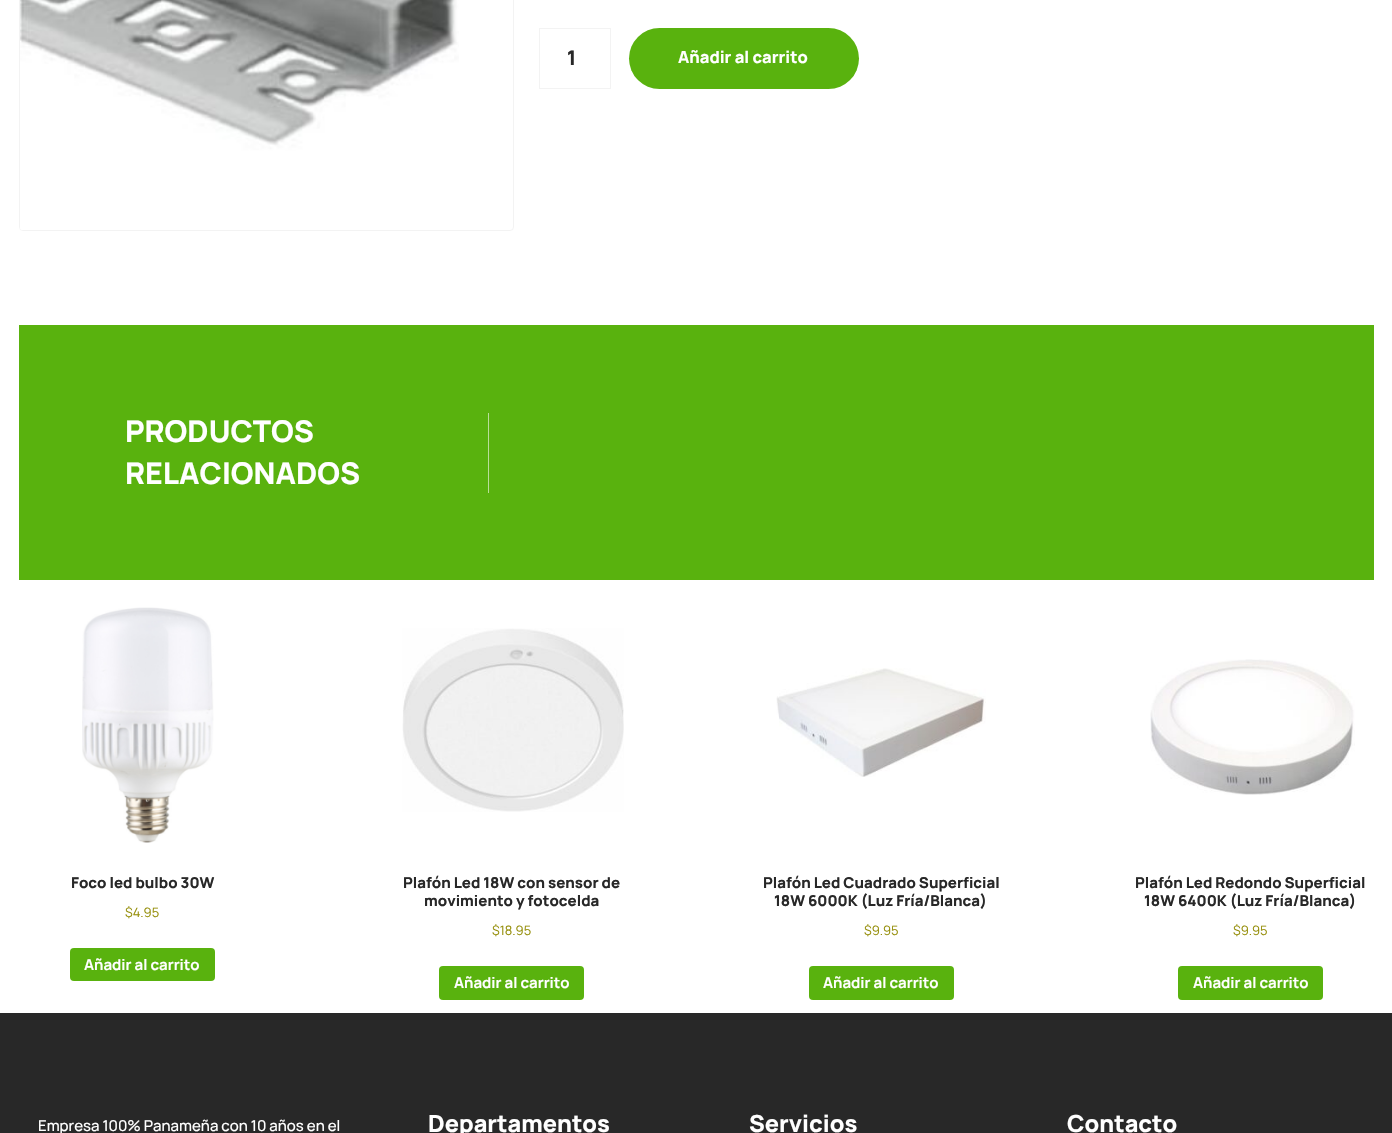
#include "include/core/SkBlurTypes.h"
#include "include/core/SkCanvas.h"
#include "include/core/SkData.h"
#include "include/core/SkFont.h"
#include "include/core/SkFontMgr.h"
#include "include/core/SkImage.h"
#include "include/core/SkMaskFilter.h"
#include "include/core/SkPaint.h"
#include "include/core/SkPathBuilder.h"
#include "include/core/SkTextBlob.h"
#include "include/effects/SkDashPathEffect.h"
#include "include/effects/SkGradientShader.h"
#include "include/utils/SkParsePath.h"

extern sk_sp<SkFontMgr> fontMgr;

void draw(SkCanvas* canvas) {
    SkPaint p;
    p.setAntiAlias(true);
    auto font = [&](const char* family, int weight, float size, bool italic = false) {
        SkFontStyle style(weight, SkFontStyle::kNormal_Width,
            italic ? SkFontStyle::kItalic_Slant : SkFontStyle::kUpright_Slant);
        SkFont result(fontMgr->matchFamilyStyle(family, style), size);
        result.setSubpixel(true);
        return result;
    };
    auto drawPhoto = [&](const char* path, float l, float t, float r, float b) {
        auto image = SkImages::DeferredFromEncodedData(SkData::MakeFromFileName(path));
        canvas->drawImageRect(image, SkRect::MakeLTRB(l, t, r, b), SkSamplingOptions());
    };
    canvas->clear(0xFFFFFFFF);
    p.setStyle(SkPaint::kStroke_Style);
    p.setStrokeWidth(1);
    p.setColor(0xFFF3F3F3);
    canvas->drawRoundRect(SkRect::MakeLTRB(19.5f, -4.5f, 513.5f, 230.5f), 3.5f, 3.5f, p);
    drawPhoto("media/1.png", 20, 0, 459, 230);
    canvas->drawRect(SkRect::MakeLTRB(539.5f, 28.5f, 610.5f, 88.5f), p);
    auto font1 = font("Manrope", 800, 20);
    p.setStyle(SkPaint::kFill_Style);
    p.setColor(0xFF282828);
    canvas->drawString("1", 567, 65, font1, p);
    p.setColor(0xFF59B20E);
    canvas->drawRoundRect(SkRect::MakeLTRB(629, 28, 859, 89), 30.5f, 30.5f, p);
    auto font2 = font("Manrope", 800, 16.5f);
    p.setColor(0xFFFFFFFF);
    canvas->drawString("Añadir al carrito", 678, 63, font2, p);
    p.setColor(0xFF59B20E);
    canvas->drawRect(SkRect::MakeLTRB(19, 325, 1374, 580), p);
    p.setColor(0xFFB9DF9A);
    canvas->drawRect(SkRect::MakeLTRB(488, 413, 489, 493), p);
    auto font3 = font("Manrope", 800, 30);
    p.setColor(0xFFFFFFFF);
    canvas->drawString("PRODUCTOS", 125, 442, font3, p);
    canvas->drawString("RELACIONADOS", 125, 484, font3, p);
    drawPhoto("media/2.png", 82, 607, 214, 843);
    auto font4 = font("Manrope", 800, 15);
    p.setColor(0xFF282828);
    canvas->drawString("Foco led bulbo 30W", 71, 888, font4, p);
    auto font5 = font("Manrope", 400, 13);
    p.setColor(0xFF958E09);
    canvas->drawString("$4.95", 125, 917, font5, p);
    p.setColor(0xFF59B20E);
    canvas->drawRoundRect(SkRect::MakeLTRB(70, 948, 215, 981), 4, 4, p);
    auto font6 = font("Manrope", 700, 15);
    p.setColor(0xFFFFFFFF);
    canvas->drawString("Añadir al carrito", 84, 970, font6, p);
    drawPhoto("media/3.png", 402, 628, 624, 812);
    p.setColor(0xFF282828);
    canvas->drawString("Plafón Led 18W con sensor de", 403, 888, font4, p);
    canvas->drawString("movimiento y fotocelda", 424, 906, font4, p);
    p.setColor(0xFF958E09);
    canvas->drawString("$18.95", 492, 935, font5, p);
    p.setColor(0xFF59B20E);
    canvas->drawRoundRect(SkRect::MakeLTRB(439, 966, 584, 1000), 4, 4, p);
    p.setColor(0xFFFFFFFF);
    canvas->drawString("Añadir al carrito", 454, 988, font6, p);
    drawPhoto("media/4.png", 776, 668, 986, 777);
    p.setColor(0xFF282828);
    canvas->drawString("Plafón Led Cuadrado Superficial", 763, 888, font4, p);
    canvas->drawString("18W 6000K (Luz Fría/Blanca)", 774, 906, font4, p);
    p.setColor(0xFF958E09);
    canvas->drawString("$9.95", 864, 935, font5, p);
    p.setColor(0xFF59B20E);
    canvas->drawRoundRect(SkRect::MakeLTRB(809, 966, 954, 1000), 4, 4, p);
    p.setColor(0xFFFFFFFF);
    canvas->drawString("Añadir al carrito", 823, 988, font6, p);
    drawPhoto("media/5.png", 1150, 659, 1355, 795);
    p.setColor(0xFF282828);
    canvas->drawString("Plafón Led Redondo Superficial", 1135, 888, font4, p);
    canvas->drawString("18W 6400K (Luz Fría/Blanca)", 1144, 906, font4, p);
    p.setColor(0xFF958E09);
    canvas->drawString("$9.95", 1233, 935, font5, p);
    p.setColor(0xFF59B20E);
    canvas->drawRoundRect(SkRect::MakeLTRB(1178, 966, 1323, 1000), 4, 4, p);
    p.setColor(0xFFFFFFFF);
    canvas->drawString("Añadir al carrito", 1193, 988, font6, p);
    p.setColor(0xFF282828);
    canvas->drawRect(SkRect::MakeLTRB(0, 1013, 1392, 1133), p);
    auto font7 = font("Manrope", 500, 15);
    p.setColor(0xFFFFFFFF);
    canvas->drawString("Empresa 100% Panameña con 10 años en el", 38, 1131, font7, p);
    auto font8 = font("Manrope", 800, 23.5f);
    {
        const struct { const char* s; float x, y; } items[] = {
            {"Departamentos", 428, 1132},
            {"Servicios", 749, 1132},
            {"Contacto", 1067, 1132},
        };
        for (auto [s, x, y] : items) {
            canvas->drawString(s, x, y, font8, p);
        }
    }
}
